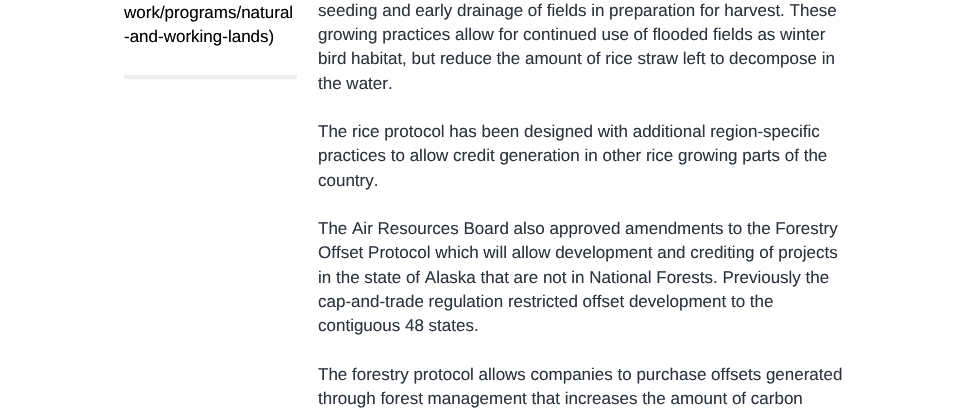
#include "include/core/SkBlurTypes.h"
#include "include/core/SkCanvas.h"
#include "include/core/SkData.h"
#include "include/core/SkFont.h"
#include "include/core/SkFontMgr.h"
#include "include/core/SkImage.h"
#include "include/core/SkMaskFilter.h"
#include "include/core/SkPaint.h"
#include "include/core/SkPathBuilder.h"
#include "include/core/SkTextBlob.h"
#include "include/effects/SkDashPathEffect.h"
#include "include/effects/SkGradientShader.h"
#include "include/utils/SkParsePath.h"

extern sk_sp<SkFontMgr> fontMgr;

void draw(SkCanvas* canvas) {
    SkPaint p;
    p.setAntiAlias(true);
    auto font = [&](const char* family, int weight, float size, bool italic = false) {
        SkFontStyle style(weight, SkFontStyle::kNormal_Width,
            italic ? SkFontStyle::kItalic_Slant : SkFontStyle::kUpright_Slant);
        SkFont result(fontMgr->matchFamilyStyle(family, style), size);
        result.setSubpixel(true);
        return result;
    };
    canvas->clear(0xFFFFFFFF);
    p.setColor(0xFFEEEEEE);
    canvas->drawRect(SkRect::MakeLTRB(124, 75, 297, 79), p);
    auto font1 = font("Liberation Sans", 400, 17);
    p.setColor(0xFF000000);
    canvas->drawString("work/programs/natural", 124, 18, font1, p);
    canvas->drawString("-and-working-lands)", 124, 42, font1, p);
    p.setColor(0xFF2D333D);
    {
        const struct { const char* s; float x, y; } items[] = {
            {"seeding and early drainage of fields in preparation for harvest. These", 318, 16},
            {"growing practices allow for continued use of flooded fields as winter", 318, 40},
            {"bird habitat, but reduce the amount of rice straw left to decompose in", 318, 64},
            {"the water.", 318, 89},
            {"The rice protocol has been designed with additional region-specific", 318, 137},
            {"practices to allow credit generation in other rice growing parts of the", 318, 161},
            {"country.", 318, 186},
            {"The Air Resources Board also approved amendments to the Forestry", 318, 234},
            {"Offset Protocol which will allow development and crediting of projects", 318, 258},
            {"in the state of Alaska that are not in National Forests. Previously the", 318, 283},
            {"cap-and-trade regulation restricted offset development to the", 318, 307},
            {"contiguous 48 states.", 318, 331},
            {"The forestry protocol allows companies to purchase offsets generated", 318, 380},
            {"through forest management that increases the amount of carbon", 318, 404},
        };
        for (auto [s, x, y] : items) {
            canvas->drawString(s, x, y, font1, p);
        }
    }
}
